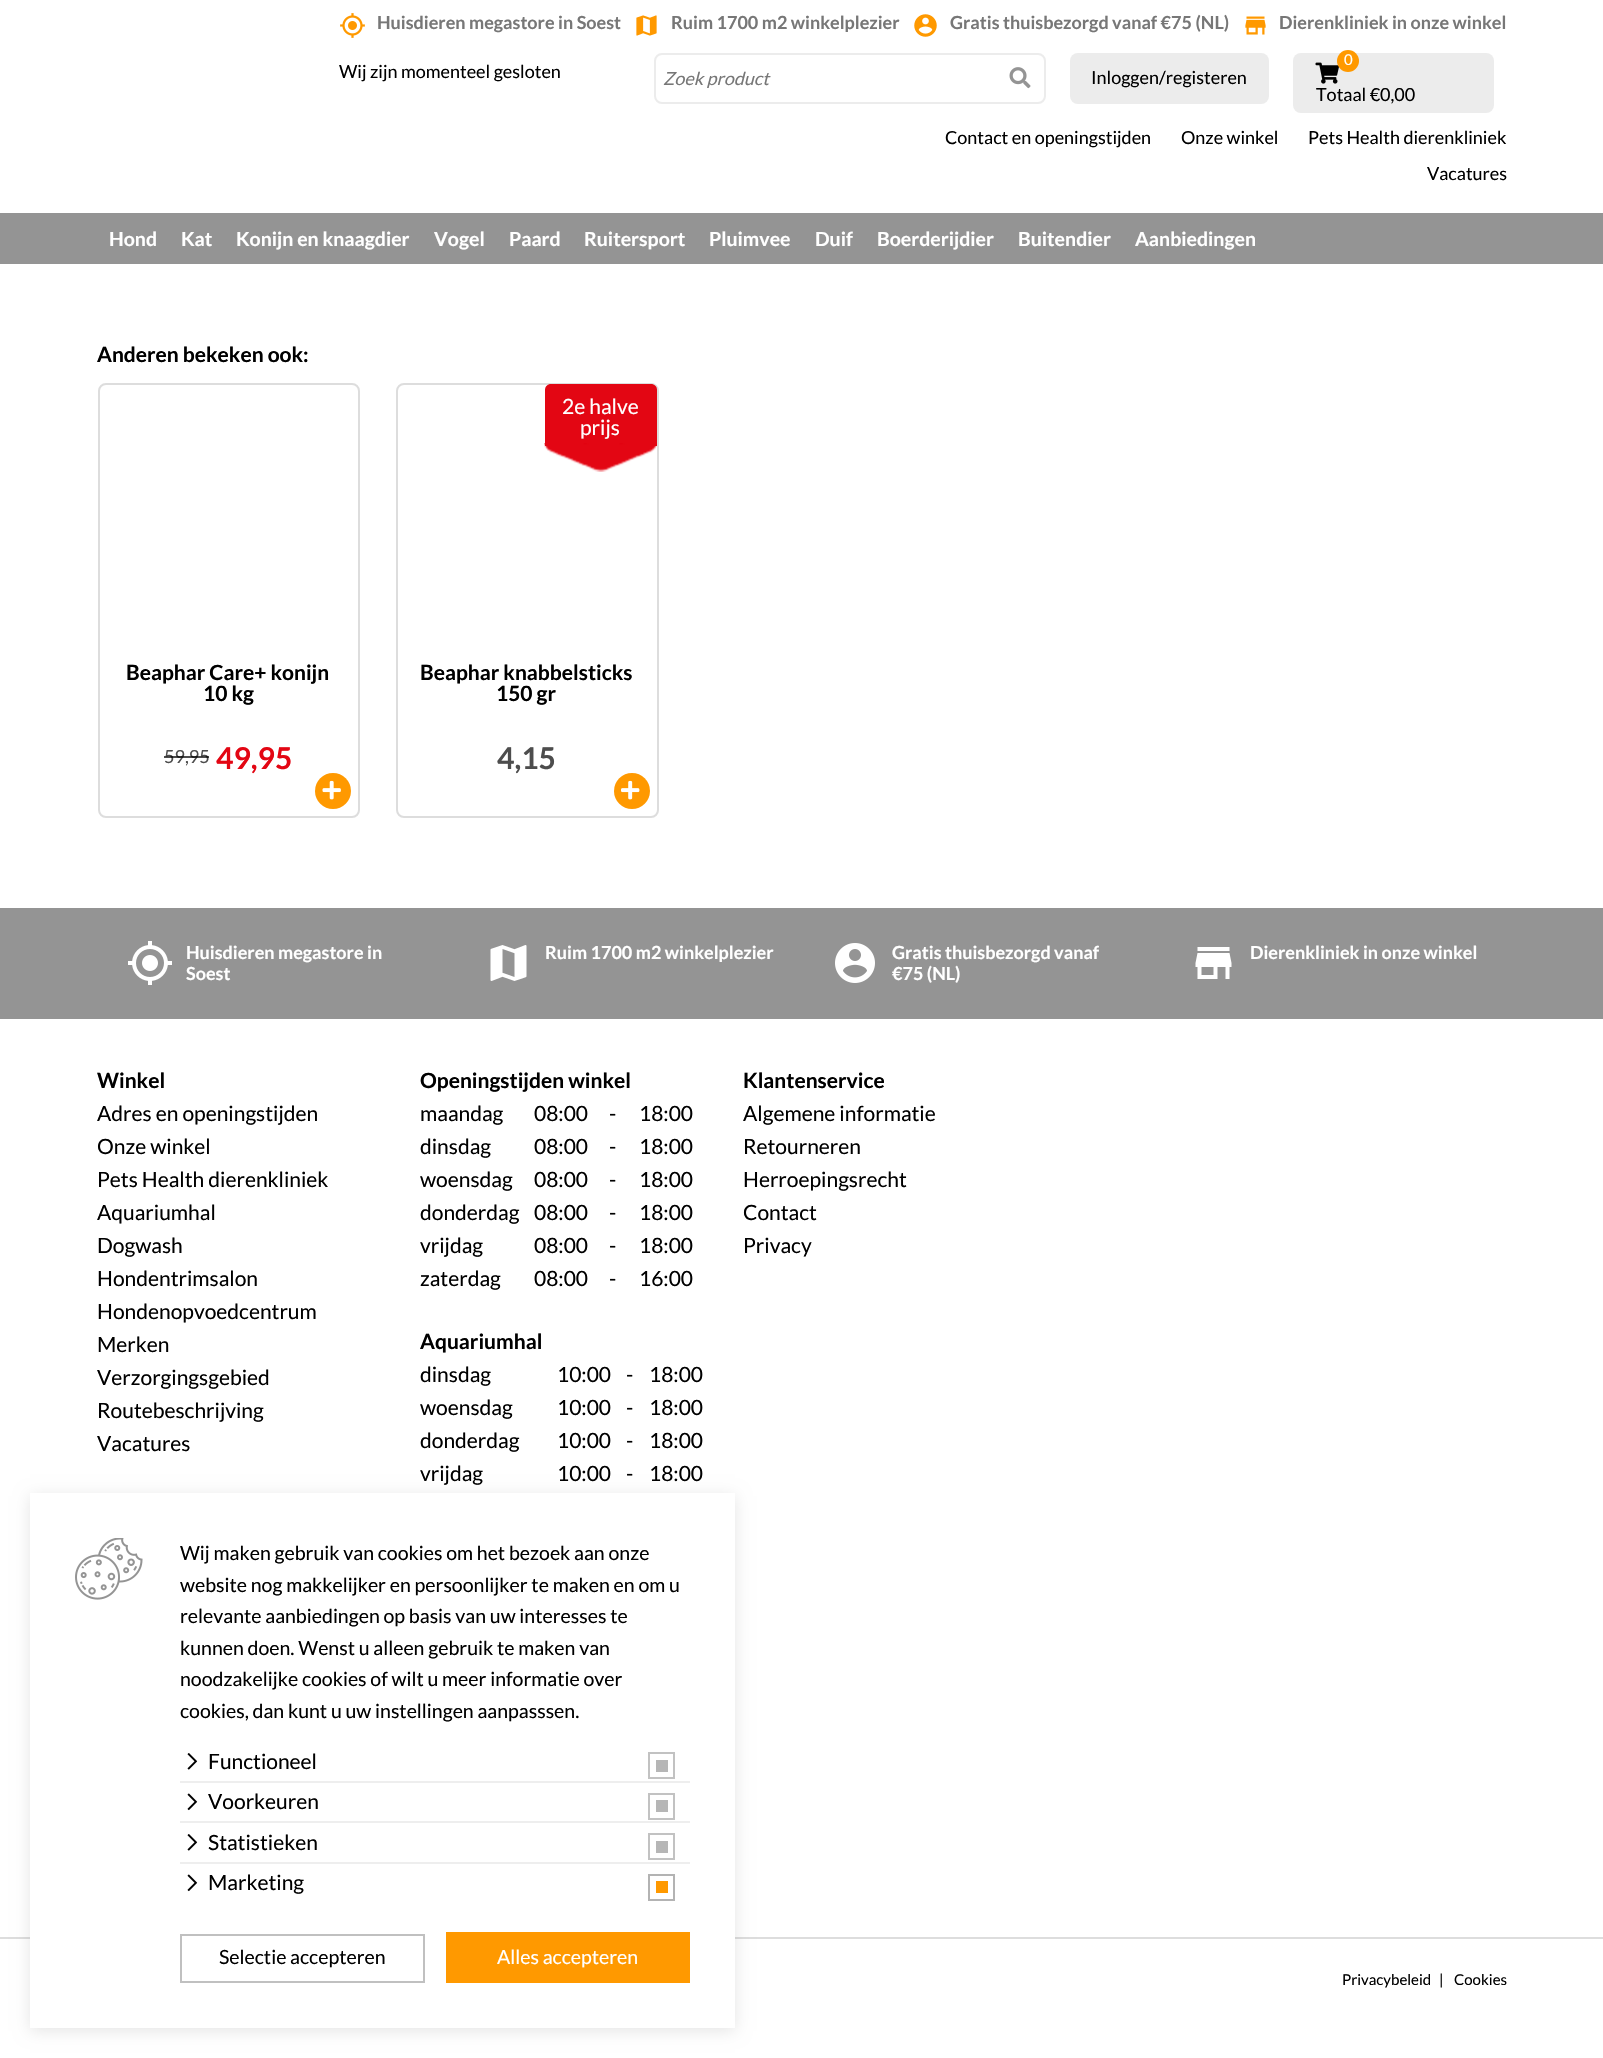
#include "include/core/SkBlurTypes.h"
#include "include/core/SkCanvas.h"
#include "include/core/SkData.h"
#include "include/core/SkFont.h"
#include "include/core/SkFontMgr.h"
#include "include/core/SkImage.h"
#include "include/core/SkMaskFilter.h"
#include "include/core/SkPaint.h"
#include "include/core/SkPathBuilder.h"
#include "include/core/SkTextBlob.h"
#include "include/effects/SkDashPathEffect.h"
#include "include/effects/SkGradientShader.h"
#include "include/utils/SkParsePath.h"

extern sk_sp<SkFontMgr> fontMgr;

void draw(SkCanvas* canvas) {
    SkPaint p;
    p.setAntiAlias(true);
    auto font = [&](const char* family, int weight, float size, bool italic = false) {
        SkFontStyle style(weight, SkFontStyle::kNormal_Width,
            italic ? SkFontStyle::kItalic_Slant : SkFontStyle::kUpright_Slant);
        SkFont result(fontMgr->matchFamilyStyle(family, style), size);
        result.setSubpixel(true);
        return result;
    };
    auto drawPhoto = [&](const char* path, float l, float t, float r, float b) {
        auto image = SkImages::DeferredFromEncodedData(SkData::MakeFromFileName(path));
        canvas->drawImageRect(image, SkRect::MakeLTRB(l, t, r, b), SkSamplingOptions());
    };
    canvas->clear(0xFFFFFFFF);
    drawPhoto("media/1.png", 340, 13, 365, 38);
    auto font1 = font("Lato", 700, 18);
    p.setColor(0xFF777777);
    canvas->drawString("Huisdieren megastore in Soest", 377, 29, font1, p);
    drawPhoto("media/2.png", 636, 15, 657, 36);
    canvas->drawString("Ruim 1700 m2 winkelplezier", 671, 29, font1, p);
    drawPhoto("media/3.png", 914, 14, 937, 37);
    canvas->drawString("Gratis thuisbezorgd vanaf €75 (NL)", 950, 29, font1, p);
    drawPhoto("media/4.png", 1245, 16, 1266, 35);
    canvas->drawString("Dierenkliniek in onze winkel", 1279, 29, font1, p);
    auto font2 = font("Lato", 400, 18);
    p.setColor(0xFF000000);
    canvas->drawString("Wij zijn momenteel gesloten", 339, 78, font2, p);
    p.setStyle(SkPaint::kStroke_Style);
    p.setStrokeWidth(2);
    p.setColor(0xFFECECEC);
    canvas->drawRoundRect(SkRect::MakeLTRB(655, 54, 1045, 103), 7, 7, p);
    auto font3 = font("Lato", 400, 18, true);
    p.setStyle(SkPaint::kFill_Style);
    p.setColor(0xFF777777);
    canvas->drawString("Zoek product", 663, 85, font3, p);
    drawPhoto("media/5.png", 1009, 67, 1031, 89);
    p.setColor(0xFFECECEC);
    canvas->drawRoundRect(SkRect::MakeLTRB(1070, 53, 1269, 104), 8, 8, p);
    p.setColor(0xFF000000);
    canvas->drawString("Inloggen/registeren", 1091, 84, font2, p);
    p.setColor(0xFFECECEC);
    canvas->drawRoundRect(SkRect::MakeLTRB(1293, 53, 1494, 113), 8, 8, p);
    drawPhoto("media/6.png", 1315, 62, 1339, 84);
    p.setColor(0xFFFF9900);
    canvas->drawCircle(1348, 61, 11, p);
    auto font4 = font("Lato", 400, 15);
    p.setColor(0xFFFFFFFF);
    canvas->drawString("0", 1344, 65, font4, p);
    p.setColor(0xFF000000);
    {
        const struct { const char* s; float x, y; } items[] = {
            {"Totaal €0,00", 1316, 101},
            {"Contact en openingstijden", 945, 144},
            {"Onze winkel", 1181, 144},
            {"Pets Health dierenkliniek", 1308, 144},
            {"Vacatures", 1427, 180},
        };
        for (auto [s, x, y] : items) {
            canvas->drawString(s, x, y, font2, p);
        }
    }
    p.setColor(0xFF949494);
    canvas->drawRect(SkRect::MakeLTRB(0, 213, 1603, 264), p);
    auto font5 = font("Lato", 700, 19.5f);
    p.setColor(0xFFFFFFFF);
    {
        const struct { const char* s; float x, y; } items[] = {
            {"Hond", 109, 246},
            {"Kat", 181, 246},
            {"Konijn en knaagdier", 236, 246},
            {"Vogel", 434, 246},
            {"Paard", 509, 246},
            {"Ruitersport", 584, 246},
            {"Pluimvee", 709, 246},
            {"Duif", 815, 246},
            {"Boerderijdier", 877, 246},
            {"Buitendier", 1018, 246},
            {"Aanbiedingen", 1135, 246},
        };
        for (auto [s, x, y] : items) {
            canvas->drawString(s, x, y, font5, p);
        }
    }
    auto font6 = font("Lato", 700, 21);
    p.setColor(0xFF000000);
    canvas->drawString("Anderen bekeken ook:", 97, 362, font6, p);
    p.setStyle(SkPaint::kStroke_Style);
    p.setColor(0xFFDDDDDD);
    canvas->drawRoundRect(SkRect::MakeLTRB(99, 384, 359, 817), 7, 7, p);
    p.setStyle(SkPaint::kFill_Style);
    p.setColor(0xFF000000);
    canvas->drawString("Beaphar Care+ konijn", 126, 680, font6, p);
    canvas->drawString("10 kg", 203, 701, font6, p);
    p.setColor(0xFF4D4D4D);
    canvas->drawString("59,95", 164, 763, font2, p);
    p.setColor(0xB3000000);
    canvas->drawRect(SkRect::MakeLTRB(164, 756, 209, 758), p);
    auto font7 = font("Lato", 700, 30);
    p.setColor(0xFFE30613);
    canvas->drawString("49,95", 216, 769, font7, p);
    p.setColor(0xFFFF9900);
    canvas->drawCircle(333, 791, 18, p);
    drawPhoto("media/7.png", 322, 780, 341, 800);
    p.setStyle(SkPaint::kStroke_Style);
    p.setColor(0xFFDDDDDD);
    canvas->drawRoundRect(SkRect::MakeLTRB(397, 384, 658, 817), 7, 7, p);
    p.setStyle(SkPaint::kFill_Style);
    p.setColor(0xFFE30613);
    canvas->drawPath(SkPathBuilder().moveTo(551, 384).lineTo(651, 384).cubicTo(654.5f, 384, 657, 386.5f, 657, 390).lineTo(657, 446).lineTo(545, 446).lineTo(545, 390).cubicTo(545, 386.5f, 547.5f, 384, 551, 384).close().detach(), p);
    auto font8 = font("Lato", 400, 21);
    p.setColor(0xFFFFFFFF);
    canvas->drawString("2e halve", 562, 414, font8, p);
    canvas->drawString("prijs", 580, 435, font8, p);
    drawPhoto("media/8.png", 544, 443, 657, 472);
    p.setColor(0xFF000000);
    canvas->drawString("Beaphar knabbelsticks", 420, 680, font6, p);
    canvas->drawString("150 gr", 496, 701, font6, p);
    p.setColor(0xFF4D4D4D);
    canvas->drawString("4,15", 497, 769, font7, p);
    p.setColor(0xFFFF9900);
    canvas->drawCircle(632, 791, 18, p);
    drawPhoto("media/9.png", 621, 780, 640, 800);
    p.setColor(0xFFDDDDDD);
    canvas->drawRect(SkRect::MakeLTRB(0, 1937, 1603, 1939), p);
    p.setColor(0xFF949494);
    canvas->drawRect(SkRect::MakeLTRB(0, 908, 1603, 1019), p);
    drawPhoto("media/10.png", 128, 941, 172, 985);
    p.setColor(0xFFFFFFFF);
    canvas->drawString("Huisdieren megastore in", 186, 959, font1, p);
    canvas->drawString("Soest", 186, 980, font1, p);
    drawPhoto("media/11.png", 490, 945, 527, 981);
    canvas->drawString("Ruim 1700 m2 winkelplezier", 545, 959, font1, p);
    drawPhoto("media/12.png", 835, 943, 875, 983);
    canvas->drawString("Gratis thuisbezorgd vanaf", 892, 959, font1, p);
    canvas->drawString("€75 (NL)", 892, 980, font1, p);
    drawPhoto("media/13.png", 1195, 947, 1232, 979);
    canvas->drawString("Dierenkliniek in onze winkel", 1250, 959, font1, p);
    p.setColor(0xFF000000);
    canvas->drawString("Winkel", 97, 1088, font6, p);
    {
        const struct { const char* s; float x, y; } items[] = {
            {"Adres en openingstijden", 97, 1121},
            {"Onze winkel", 97, 1154},
            {"Pets Health dierenkliniek", 97, 1187},
            {"Aquariumhal", 97, 1220},
            {"Dogwash", 97, 1253},
            {"Hondentrimsalon", 97, 1286},
            {"Hondenopvoedcentrum", 97, 1319},
            {"Merken", 97, 1352},
            {"Verzorgingsgebied", 97, 1385},
            {"Routebeschrijving", 97, 1418},
            {"Vacatures", 97, 1451},
        };
        for (auto [s, x, y] : items) {
            canvas->drawString(s, x, y, font8, p);
        }
    }
    canvas->drawString("Openingstijden winkel", 420, 1088, font6, p);
    {
        const struct { const char* s; float x, y; } items[] = {
            {"maandag", 420, 1121},
            {"08:00", 534, 1121},
            {"-", 609, 1121},
            {"18:00", 639, 1121},
            {"dinsdag", 420, 1154},
            {"08:00", 534, 1154},
            {"-", 609, 1154},
            {"18:00", 639, 1154},
            {"woensdag", 420, 1187},
            {"08:00", 534, 1187},
            {"-", 609, 1187},
            {"18:00", 639, 1187},
            {"donderdag", 420, 1220},
            {"08:00", 534, 1220},
            {"-", 609, 1220},
            {"18:00", 639, 1220},
            {"vrijdag", 420, 1253},
            {"08:00", 534, 1253},
            {"-", 609, 1253},
            {"18:00", 639, 1253},
            {"zaterdag", 420, 1286},
            {"08:00", 534, 1286},
            {"-", 609, 1286},
            {"16:00", 639, 1286},
        };
        for (auto [s, x, y] : items) {
            canvas->drawString(s, x, y, font8, p);
        }
    }
    canvas->drawString("Aquariumhal", 420, 1349, font6, p);
    {
        const struct { const char* s; float x, y; } items[] = {
            {"dinsdag", 420, 1382},
            {"10:00", 557, 1382},
            {"-", 626, 1382},
            {"18:00", 649, 1382},
            {"woensdag", 420, 1415},
            {"10:00", 557, 1415},
            {"-", 626, 1415},
            {"18:00", 649, 1415},
            {"donderdag", 420, 1448},
            {"10:00", 557, 1448},
            {"-", 626, 1448},
            {"18:00", 649, 1448},
            {"vrijdag", 420, 1481},
            {"10:00", 557, 1481},
            {"-", 626, 1481},
            {"18:00", 649, 1481},
        };
        for (auto [s, x, y] : items) {
            canvas->drawString(s, x, y, font8, p);
        }
    }
    canvas->drawString("Klantenservice", 743, 1088, font6, p);
    {
        const struct { const char* s; float x, y; } items[] = {
            {"Algemene informatie", 743, 1121},
            {"Retourneren", 743, 1154},
            {"Herroepingsrecht", 743, 1187},
            {"Contact", 743, 1220},
            {"Privacy", 743, 1253},
        };
        for (auto [s, x, y] : items) {
            canvas->drawString(s, x, y, font8, p);
        }
    }
    {
        const struct { const char* s; float x, y; } items[] = {
            {"Privacybeleid", 1342, 1985},
            {"|", 1439, 1985},
            {"Cookies", 1454, 1985},
        };
        for (auto [s, x, y] : items) {
            canvas->drawString(s, x, y, font4, p);
        }
    }
    p.setColor(0x1A000000);
    p.setMaskFilter(SkMaskFilter::MakeBlur(kNormal_SkBlurStyle, 7.5f));
    canvas->drawRect(SkRect::MakeLTRB(30, 1496, 735, 2031), p);
    p.setMaskFilter(nullptr);
    p.setColor(0xFFFFFFFF);
    canvas->drawRect(SkRect::MakeLTRB(30, 1493, 735, 2028), p);
    drawPhoto("media/14.png", 75, 1538, 143, 1600);
    auto font9 = font("Lato", 400, 19.5f);
    p.setColor(0xFF000000);
    {
        const struct { const char* s; float x, y; } items[] = {
            {"Wij maken gebruik van cookies om het bezoek aan onze", 180, 1560},
            {"website nog makkelijker en persoonlijker te maken en om u", 180, 1592},
            {"relevante aanbiedingen op basis van uw interesses te", 180, 1623},
            {"kunnen doen. Wenst u alleen gebruik te maken van", 180, 1655},
            {"noodzakelijke cookies of wilt u meer informatie over", 180, 1686},
            {"cookies, dan kunt u uw instellingen aanpasssen.", 180, 1718},
        };
        for (auto [s, x, y] : items) {
            canvas->drawString(s, x, y, font9, p);
        }
    }
    drawPhoto("media/15.png", 187, 1753, 198, 1770);
    canvas->drawString("Functioneel", 208, 1769, font8, p);
    p.setStyle(SkPaint::kStroke_Style);
    p.setColor(0xFFC2C2C2);
    canvas->drawRect(SkRect::MakeLTRB(649, 1753, 674, 1778), p);
    p.setStyle(SkPaint::kFill_Style);
    p.setColor(0xFFB6B6B6);
    canvas->drawRect(SkRect::MakeLTRB(656, 1760, 668, 1772), p);
    p.setColor(0xFFEEEEEE);
    canvas->drawRect(SkRect::MakeLTRB(180, 1781, 690, 1783), p);
    drawPhoto("media/16.png", 187, 1793, 198, 1811);
    p.setColor(0xFF000000);
    canvas->drawString("Voorkeuren", 208, 1809, font8, p);
    p.setStyle(SkPaint::kStroke_Style);
    p.setColor(0xFFC2C2C2);
    canvas->drawRect(SkRect::MakeLTRB(649, 1794, 674, 1819), p);
    p.setStyle(SkPaint::kFill_Style);
    p.setColor(0xFFB6B6B6);
    canvas->drawRect(SkRect::MakeLTRB(656, 1800, 668, 1812), p);
    p.setColor(0xFFEEEEEE);
    canvas->drawRect(SkRect::MakeLTRB(180, 1821, 690, 1823), p);
    drawPhoto("media/15.png", 187, 1834, 198, 1851);
    p.setColor(0xFF000000);
    canvas->drawString("Statistieken", 208, 1850, font8, p);
    p.setStyle(SkPaint::kStroke_Style);
    p.setColor(0xFFC2C2C2);
    canvas->drawRect(SkRect::MakeLTRB(649, 1834, 674, 1859), p);
    p.setStyle(SkPaint::kFill_Style);
    p.setColor(0xFFB6B6B6);
    canvas->drawRect(SkRect::MakeLTRB(656, 1841, 668, 1853), p);
    p.setColor(0xFFEEEEEE);
    canvas->drawRect(SkRect::MakeLTRB(180, 1862, 690, 1864), p);
    drawPhoto("media/16.png", 187, 1874, 198, 1892);
    p.setColor(0xFF000000);
    canvas->drawString("Marketing", 208, 1890, font8, p);
    p.setStyle(SkPaint::kStroke_Style);
    p.setColor(0xFFB3B3B3);
    canvas->drawRect(SkRect::MakeLTRB(649, 1875, 674, 1900), p);
    p.setStyle(SkPaint::kFill_Style);
    p.setColor(0xFFFF9900);
    canvas->drawRect(SkRect::MakeLTRB(656, 1881, 668, 1893), p);
    p.setStyle(SkPaint::kStroke_Style);
    p.setColor(0xFFC0C0C0);
    canvas->drawRect(SkRect::MakeLTRB(181, 1935, 424, 1982), p);
    p.setStyle(SkPaint::kFill_Style);
    p.setColor(0xFF000000);
    canvas->drawString("Selectie accepteren", 219, 1964, font9, p);
    p.setColor(0xFFFF9900);
    canvas->drawRect(SkRect::MakeLTRB(446, 1932, 690, 1983), p);
    p.setColor(0xFFFFFFFF);
    canvas->drawString("Alles accepteren", 497, 1964, font9, p);
}
